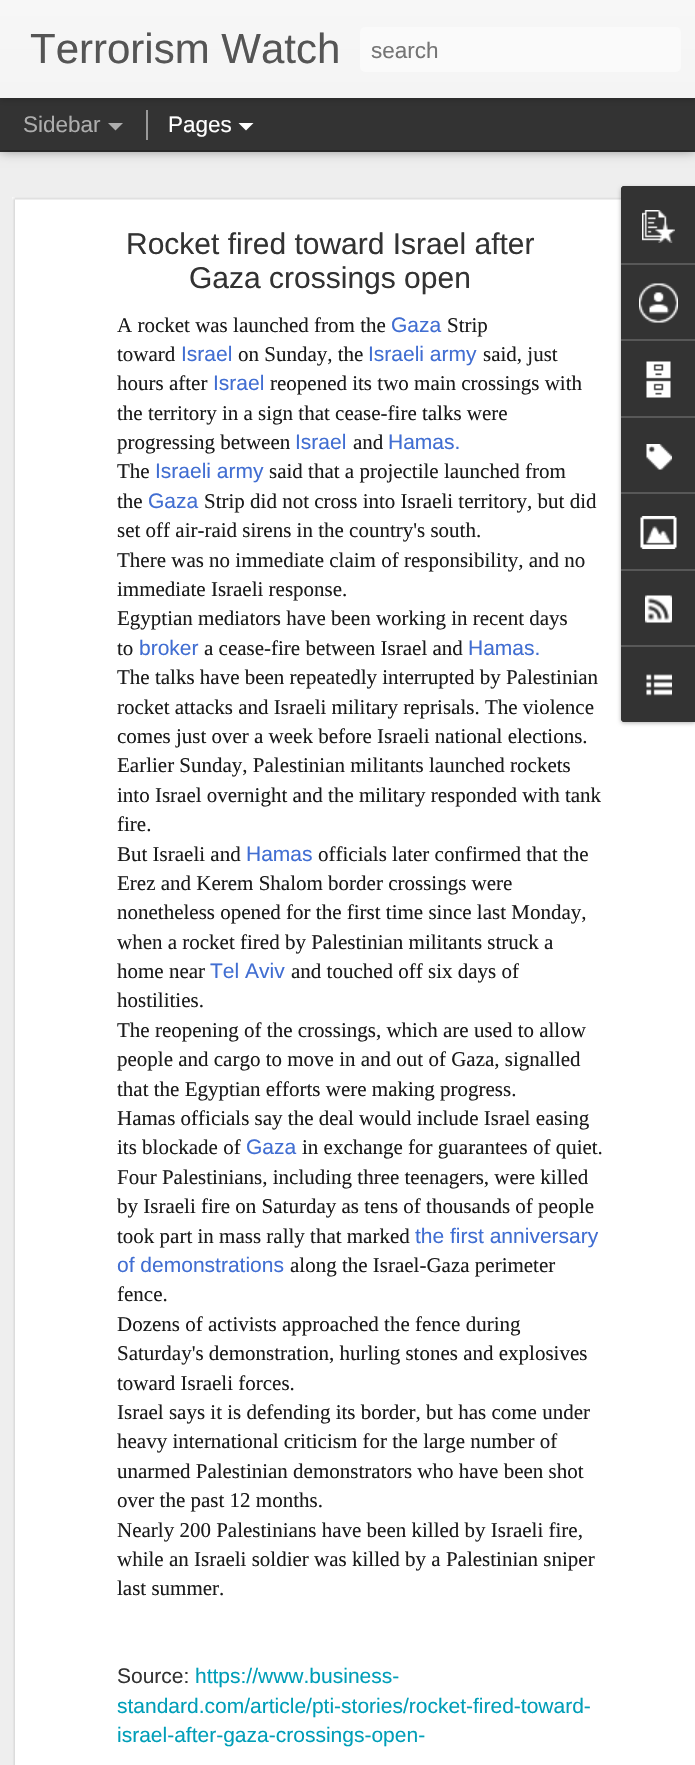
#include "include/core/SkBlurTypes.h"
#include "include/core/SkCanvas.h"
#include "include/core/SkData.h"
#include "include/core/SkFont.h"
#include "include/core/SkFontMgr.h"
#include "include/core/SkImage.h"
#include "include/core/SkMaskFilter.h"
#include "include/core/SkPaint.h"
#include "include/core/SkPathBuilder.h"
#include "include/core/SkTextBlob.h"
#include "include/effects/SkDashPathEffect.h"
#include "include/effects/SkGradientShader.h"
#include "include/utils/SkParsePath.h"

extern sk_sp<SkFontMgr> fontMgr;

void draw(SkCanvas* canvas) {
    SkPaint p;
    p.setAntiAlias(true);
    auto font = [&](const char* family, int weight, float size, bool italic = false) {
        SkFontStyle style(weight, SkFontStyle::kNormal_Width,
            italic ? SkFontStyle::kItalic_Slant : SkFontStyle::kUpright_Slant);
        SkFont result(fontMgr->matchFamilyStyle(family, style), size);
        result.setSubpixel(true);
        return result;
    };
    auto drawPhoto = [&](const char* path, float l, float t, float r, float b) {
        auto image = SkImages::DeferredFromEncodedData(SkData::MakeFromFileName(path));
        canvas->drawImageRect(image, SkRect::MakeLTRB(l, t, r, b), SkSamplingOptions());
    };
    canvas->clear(0xFF333333);
    p.setColor(0xFFEEEEEE);
    canvas->drawRect(SkRect::MakeLTRB(0, 152, 695, 1765), p);
    p.setColor(0x80000000);
    p.setMaskFilter(SkMaskFilter::MakeBlur(kNormal_SkBlurStyle, 6));
    canvas->drawRect(SkRect::MakeLTRB(0, 98, 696, 150), p);
    p.setMaskFilter(nullptr);
    p.setColor(0xFF333333);
    canvas->drawRect(SkRect::MakeLTRB(0, 98, 695, 150), p);
    p.setColor(0xFF999999);
    canvas->drawRect(SkRect::MakeLTRB(146, 110, 148, 140), p);
    p.setColor(0x4D000000);
    p.setMaskFilter(SkMaskFilter::MakeBlur(kNormal_SkBlurStyle, 4));
    canvas->drawRect(SkRect::MakeLTRB(0, 0, 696, 98), p);
    p.setMaskFilter(nullptr);
    {
        const SkColor colors[] = {0xFFF7F7F7, 0xFFF4F4F4};
        const float stops[] = {0, 1};
        const SkPoint ends[] = {{0, 0}, {0, 98}};
        p.setShader(SkGradientShader::MakeLinear(ends, colors, stops, 2, SkTileMode::kClamp));
        p.setAlpha(255);
    }
    canvas->drawRect(SkRect::MakeLTRB(0, 0, 695, 98), p);
    auto font1 = font("Liberation Sans", 400, 42);
    p.setShader(nullptr);
    p.setColor(0xFF555555);
    canvas->drawString("Terrorism Watch", 30, 63, font1, p);
    p.setColor(0xFFFAFAFA);
    canvas->drawRoundRect(SkRect::MakeLTRB(360, 27, 681, 72), 5, 5, p);
    auto font2 = font("Liberation Sans", 400, 22.5f);
    p.setColor(0xFF757575);
    canvas->drawString("search", 371, 58, font2, p);
    p.setColor(0xFFADADAD);
    canvas->drawString("Sidebar", 23, 132, font2, p);
    canvas->drawPath(SkPathBuilder().moveTo(108, 123).lineTo(123, 123).lineTo(115.5f, 130.5f).close().detach(), p);
    p.setColor(0xFFFFFFFF);
    canvas->drawString("Pages", 168, 132, font2, p);
    canvas->drawPath(SkPathBuilder().moveTo(238.5f, 123).lineTo(253.5f, 123).lineTo(246, 130.5f).close().detach(), p);
    canvas->drawRect(SkRect::MakeLTRB(12, 197, 695, 1765), p);
    drawPhoto("media/1.png", 12, 197, 621, 1765);
    auto font3 = font("Liberation Sans", 400, 30);
    p.setColor(0xFF333333);
    canvas->drawString("Rocket fired toward Israel after", 126, 254, font3, p);
    canvas->drawString("Gaza crossings open", 189, 288, font3, p);
    auto font4 = font("Liberation Serif", 400, 21);
    p.setColor(0xFF1B1B1B);
    canvas->drawString("A rocket was launched from the", 117, 332, font4, p);
    auto font5 = font("Liberation Sans", 400, 21);
    p.setColor(0xFF416ED2);
    canvas->drawString("Gaza", 391, 332, font5, p);
    p.setColor(0xFF1B1B1B);
    canvas->drawString("Strip", 447, 332, font4, p);
    canvas->drawString("toward", 117, 361, font4, p);
    p.setColor(0xFF416ED2);
    canvas->drawString("Israel", 181, 361, font5, p);
    p.setColor(0xFF1B1B1B);
    canvas->drawString("on Sunday, the", 238, 361, font4, p);
    p.setColor(0xFF416ED2);
    canvas->drawString("Israeli army", 368, 361, font5, p);
    p.setColor(0xFF1B1B1B);
    canvas->drawString("said, just", 483, 361, font4, p);
    canvas->drawString("hours after", 117, 390, font4, p);
    p.setColor(0xFF416ED2);
    canvas->drawString("Israel", 213, 390, font5, p);
    p.setColor(0xFF1B1B1B);
    {
        const struct { const char* s; float x, y; } items[] = {
            {"reopened its two main crossings with", 270, 390},
            {"the territory in a sign that cease-fire talks were", 117, 420},
            {"progressing between", 117, 449},
        };
        for (auto [s, x, y] : items) {
            canvas->drawString(s, x, y, font4, p);
        }
    }
    p.setColor(0xFF416ED2);
    canvas->drawString("Israel", 295, 449, font5, p);
    p.setColor(0xFF1B1B1B);
    canvas->drawString("and", 353, 449, font4, p);
    p.setColor(0xFF416ED2);
    canvas->drawString("Hamas.", 388, 449, font5, p);
    p.setColor(0xFF1B1B1B);
    canvas->drawString("The", 117, 478, font4, p);
    p.setColor(0xFF416ED2);
    canvas->drawString("Israeli army", 155, 478, font5, p);
    p.setColor(0xFF1B1B1B);
    canvas->drawString("said that a projectile launched from", 269, 478, font4, p);
    canvas->drawString("the", 117, 508, font4, p);
    p.setColor(0xFF416ED2);
    canvas->drawString("Gaza", 148, 508, font5, p);
    p.setColor(0xFF1B1B1B);
    {
        const struct { const char* s; float x, y; } items[] = {
            {"Strip did not cross into Israeli territory, but did", 204, 508},
            {"set off air-raid sirens in the country's south.", 117, 537},
            {"There was no immediate claim of responsibility, and no", 117, 567},
            {"immediate Israeli response.", 117, 596},
            {"Egyptian mediators have been working in recent days", 117, 625},
            {"to", 117, 655},
        };
        for (auto [s, x, y] : items) {
            canvas->drawString(s, x, y, font4, p);
        }
    }
    p.setColor(0xFF416ED2);
    canvas->drawString("broker", 139, 655, font5, p);
    p.setColor(0xFF1B1B1B);
    canvas->drawString("a cease-fire between Israel and", 204, 655, font4, p);
    p.setColor(0xFF416ED2);
    canvas->drawString("Hamas.", 468, 655, font5, p);
    p.setColor(0xFF1B1B1B);
    {
        const struct { const char* s; float x, y; } items[] = {
            {"The talks have been repeatedly interrupted by Palestinian", 117, 684},
            {"rocket attacks and Israeli military reprisals. The violence", 117, 714},
            {"comes just over a week before Israeli national elections.", 117, 743},
            {"Earlier Sunday, Palestinian militants launched rockets", 117, 772},
            {"into Israel overnight and the military responded with tank", 117, 802},
            {"fire.", 117, 831},
            {"But Israeli and", 117, 861},
        };
        for (auto [s, x, y] : items) {
            canvas->drawString(s, x, y, font4, p);
        }
    }
    p.setColor(0xFF416ED2);
    canvas->drawString("Hamas", 246, 861, font5, p);
    p.setColor(0xFF1B1B1B);
    {
        const struct { const char* s; float x, y; } items[] = {
            {"officials later confirmed that the", 318, 861},
            {"Erez and Kerem Shalom border crossings were", 117, 890},
            {"nonetheless opened for the first time since last Monday,", 117, 919},
            {"when a rocket fired by Palestinian militants struck a", 117, 949},
            {"home near", 117, 978},
        };
        for (auto [s, x, y] : items) {
            canvas->drawString(s, x, y, font4, p);
        }
    }
    p.setColor(0xFF416ED2);
    canvas->drawString("Tel Aviv", 210, 978, font5, p);
    p.setColor(0xFF1B1B1B);
    {
        const struct { const char* s; float x, y; } items[] = {
            {"and touched off six days of", 291, 978},
            {"hostilities.", 117, 1007},
            {"The reopening of the crossings, which are used to allow", 117, 1037},
            {"people and cargo to move in and out of Gaza, signalled", 117, 1066},
            {"that the Egyptian efforts were making progress.", 117, 1096},
            {"Hamas officials say the deal would include Israel easing", 117, 1125},
            {"its blockade of", 117, 1154},
        };
        for (auto [s, x, y] : items) {
            canvas->drawString(s, x, y, font4, p);
        }
    }
    p.setColor(0xFF416ED2);
    canvas->drawString("Gaza", 246, 1154, font5, p);
    p.setColor(0xFF1B1B1B);
    {
        const struct { const char* s; float x, y; } items[] = {
            {"in exchange for guarantees of quiet.", 302, 1154},
            {"Four Palestinians, including three teenagers, were killed", 117, 1184},
            {"by Israeli fire on Saturday as tens of thousands of people", 117, 1213},
            {"took part in mass rally that marked", 117, 1243},
        };
        for (auto [s, x, y] : items) {
            canvas->drawString(s, x, y, font4, p);
        }
    }
    p.setColor(0xFF416ED2);
    canvas->drawString("the first anniversary", 415, 1243, font5, p);
    canvas->drawString("of demonstrations", 117, 1272, font5, p);
    p.setColor(0xFF1B1B1B);
    {
        const struct { const char* s; float x, y; } items[] = {
            {"along the Israel-Gaza perimeter", 290, 1272},
            {"fence.", 117, 1301},
            {"Dozens of activists approached the fence during", 117, 1331},
            {"Saturday's demonstration, hurling stones and explosives", 117, 1360},
            {"toward Israeli forces.", 117, 1390},
            {"Israel says it is defending its border, but has come under", 117, 1419},
            {"heavy international criticism for the large number of", 117, 1448},
            {"unarmed Palestinian demonstrators who have been shot", 117, 1478},
            {"over the past 12 months.", 117, 1507},
            {"Nearly 200 Palestinians have been killed by Israeli fire,", 117, 1537},
            {"while an Israeli soldier was killed by a Palestinian sniper", 117, 1566},
            {"last summer.", 117, 1595},
        };
        for (auto [s, x, y] : items) {
            canvas->drawString(s, x, y, font4, p);
        }
    }
    p.setColor(0xFF333333);
    canvas->drawString("Source:", 117, 1683, font5, p);
    p.setColor(0xFF009EB8);
    {
        const struct { const char* s; float x, y; } items[] = {
            {"https://www.business-", 195, 1683},
            {"standard.com/article/pti-stories/rocket-fired-toward-", 117, 1713},
            {"israel-after-gaza-crossings-open-", 117, 1742},
        };
        for (auto [s, x, y] : items) {
            canvas->drawString(s, x, y, font5, p);
        }
    }
    p.setColor(0x4D000000);
    p.setMaskFilter(SkMaskFilter::MakeBlur(kNormal_SkBlurStyle, 2));
    canvas->drawRoundRect(SkRect::MakeLTRB(621, 188, 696, 723), 3, 3, p);
    p.setMaskFilter(nullptr);
    p.setColor(0xFF333333);
    canvas->drawPath(SkPathBuilder().moveTo(624, 186).lineTo(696, 186).lineTo(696, 722).lineTo(624, 722).cubicTo(622.5f, 722, 621, 720.5f, 621, 719).lineTo(621, 189).cubicTo(621, 187.5f, 622.5f, 186, 624, 186).close().detach(), p);
    canvas->drawPath(SkPathBuilder().moveTo(624, 186).lineTo(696, 186).lineTo(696, 263).lineTo(621, 263).lineTo(621, 189).cubicTo(621, 187.5f, 622.5f, 186, 624, 186).close().detach(), p);
    drawPhoto("media/2.png", 642, 210, 675, 243);
    p.setColor(0xFF585858);
    canvas->drawRect(SkRect::MakeLTRB(621, 263, 695, 265), p);
    drawPhoto("media/3.png", 639, 283, 678, 323);
    canvas->drawRect(SkRect::MakeLTRB(621, 339, 695, 341), p);
    drawPhoto("media/4.png", 646, 361, 671, 398);
    canvas->drawRect(SkRect::MakeLTRB(621, 416, 695, 418), p);
    drawPhoto("media/5.png", 646, 444, 672, 470);
    canvas->drawRect(SkRect::MakeLTRB(621, 492, 695, 494), p);
    drawPhoto("media/6.png", 640, 516, 677, 549);
    canvas->drawRect(SkRect::MakeLTRB(621, 569, 695, 571), p);
    drawPhoto("media/7.png", 645, 595, 672, 623);
    p.setColor(0xFF333333);
    canvas->drawPath(SkPathBuilder().moveTo(621, 645).lineTo(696, 645).lineTo(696, 722).lineTo(624, 722).cubicTo(622.5f, 722, 621, 720.5f, 621, 719).close().detach(), p);
    p.setColor(0xFF585858);
    canvas->drawRect(SkRect::MakeLTRB(621, 645, 695, 647), p);
    drawPhoto("media/8.png", 646, 674, 672, 696);
}
